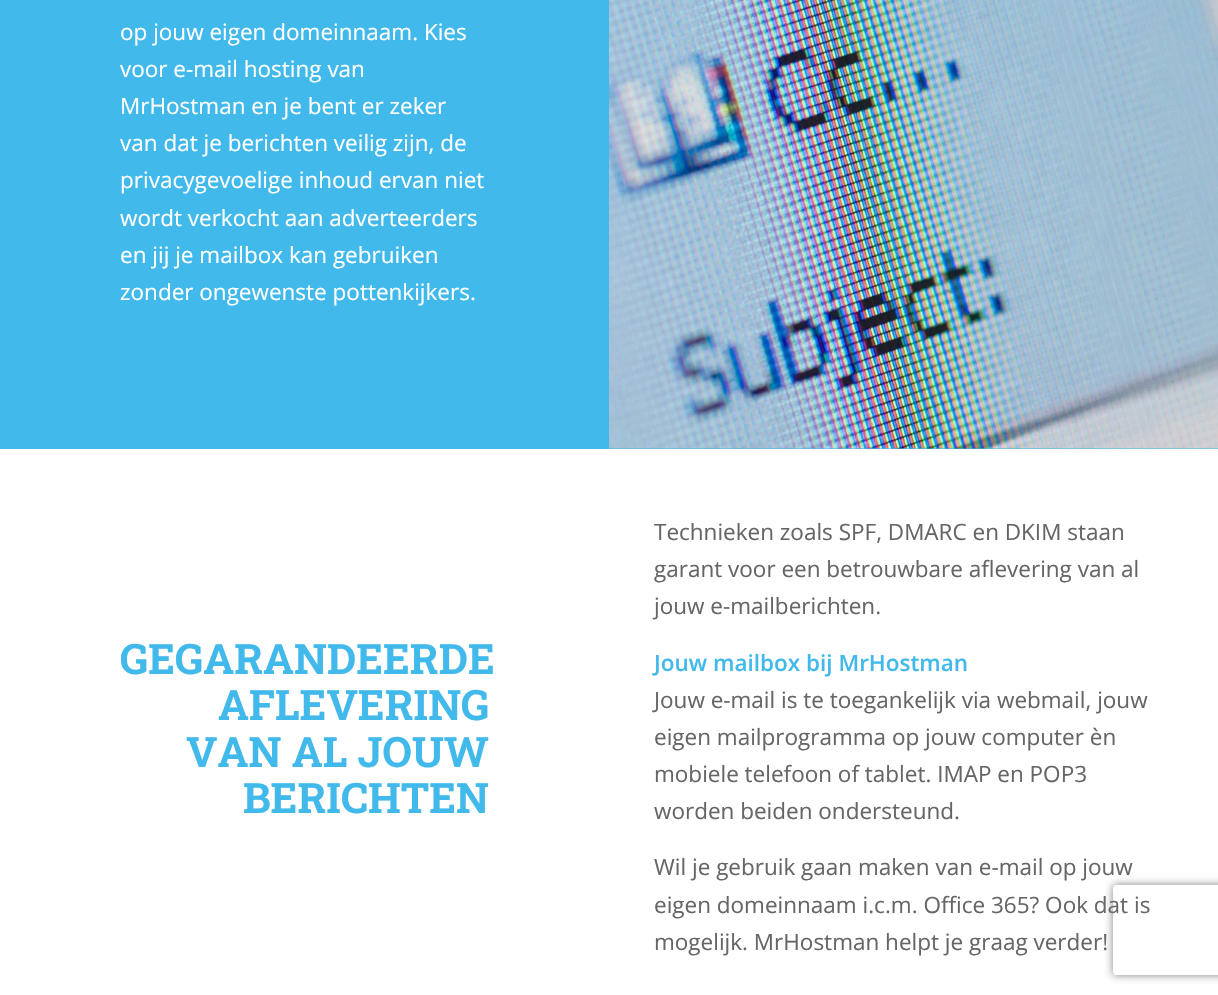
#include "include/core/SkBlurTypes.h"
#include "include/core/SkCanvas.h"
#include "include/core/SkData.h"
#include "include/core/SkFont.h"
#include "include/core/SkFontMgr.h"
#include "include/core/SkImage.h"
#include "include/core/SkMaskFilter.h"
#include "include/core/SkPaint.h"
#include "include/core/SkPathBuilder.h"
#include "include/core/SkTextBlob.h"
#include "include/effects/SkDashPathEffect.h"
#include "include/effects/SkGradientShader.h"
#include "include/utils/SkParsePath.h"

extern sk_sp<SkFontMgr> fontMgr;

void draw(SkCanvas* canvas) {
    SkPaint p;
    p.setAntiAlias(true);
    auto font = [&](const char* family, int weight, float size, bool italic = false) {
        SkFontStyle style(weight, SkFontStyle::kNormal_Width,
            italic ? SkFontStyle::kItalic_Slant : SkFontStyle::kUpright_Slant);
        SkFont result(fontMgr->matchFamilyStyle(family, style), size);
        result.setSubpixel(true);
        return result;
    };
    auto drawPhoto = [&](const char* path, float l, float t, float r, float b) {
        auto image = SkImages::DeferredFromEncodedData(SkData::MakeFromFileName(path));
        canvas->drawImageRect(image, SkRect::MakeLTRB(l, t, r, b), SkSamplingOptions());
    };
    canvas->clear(0xFFFFFFFF);
    p.setColor(0xFF41B9EB);
    canvas->drawRect(SkRect::MakeLTRB(0, 0, 609, 449), p);
    auto font1 = font("Open Sans", 400, 22.5f);
    p.setColor(0xFFFFFFFF);
    {
        const struct { const char* s; float x, y; } items[] = {
            {"op jouw eigen domeinnaam. Kies", 120, 40},
            {"voor e-mail hosting van", 120, 77},
            {"MrHostman en je bent er zeker", 120, 114},
            {"van dat je berichten veilig zijn, de", 120, 151},
            {"privacygevoelige inhoud ervan niet", 120, 188},
            {"wordt verkocht aan adverteerders", 120, 226},
            {"en jij je mailbox kan gebruiken", 120, 263},
            {"zonder ongewenste pottenkijkers.", 120, 300},
        };
        for (auto [s, x, y] : items) {
            canvas->drawString(s, x, y, font1, p);
        }
    }
    p.setColor(0xFF41B9EB);
    canvas->drawRect(SkRect::MakeLTRB(609, 448, 1218, 449), p);
    drawPhoto("media/1.png", 609, 0, 1218, 449);
    auto font2 = font("Roboto Slab", 700, 42);
    {
        const struct { const char* s; float x, y; } items[] = {
            {"GEGARANDEERDE", 120, 674},
            {"AFLEVERING", 218, 720},
            {"VAN AL JOUW", 186, 767},
            {"BERICHTEN", 243, 813},
        };
        for (auto [s, x, y] : items) {
            canvas->drawString(s, x, y, font2, p);
        }
    }
    p.setColor(0xFF666666);
    {
        const struct { const char* s; float x, y; } items[] = {
            {"Technieken zoals SPF, DMARC en DKIM staan", 654, 540},
            {"garant voor een betrouwbare aflevering van al", 654, 577},
            {"jouw e-mailberichten.", 654, 614},
        };
        for (auto [s, x, y] : items) {
            canvas->drawString(s, x, y, font1, p);
        }
    }
    auto font3 = font("Open Sans", 600, 22.5f);
    p.setColor(0xFF41B9EB);
    canvas->drawString("Jouw mailbox bij MrHostman", 654, 671, font3, p);
    p.setColor(0xFF666666);
    {
        const struct { const char* s; float x, y; } items[] = {
            {"Jouw e-mail is te toegankelijk via webmail, jouw", 654, 708},
            {"eigen mailprogramma op jouw computer èn", 654, 745},
            {"mobiele telefoon of tablet. IMAP en POP3", 654, 782},
            {"worden beiden ondersteund.", 654, 819},
            {"Wil je gebruik gaan maken van e-mail op jouw", 654, 875},
            {"eigen domeinnaam i.c.m. Office 365? Ook dat is", 654, 913},
            {"mogelijk. MrHostman helpt je graag verder!", 654, 950},
        };
        for (auto [s, x, y] : items) {
            canvas->drawString(s, x, y, font1, p);
        }
    }
    canvas->save();
    canvas->clipPath(SkPathBuilder(SkPathFillType::kEvenOdd).moveTo(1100, 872).lineTo(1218, 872).lineTo(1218, 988).lineTo(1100, 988).close().moveTo(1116, 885).lineTo(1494, 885).cubicTo(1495.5f, 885, 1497, 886.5f, 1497, 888).lineTo(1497, 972).cubicTo(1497, 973.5f, 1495.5f, 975, 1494, 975).lineTo(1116, 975).cubicTo(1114.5f, 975, 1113, 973.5f, 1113, 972).lineTo(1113, 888).cubicTo(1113, 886.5f, 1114.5f, 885, 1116, 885).close().detach(), true);
    p.setColor(0xFF808080);
    p.setMaskFilter(SkMaskFilter::MakeBlur(kNormal_SkBlurStyle, 4));
    canvas->drawRoundRect(SkRect::MakeLTRB(1113, 885, 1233, 975), 3, 3, p);
    p.setMaskFilter(nullptr);
    canvas->restore();
}
